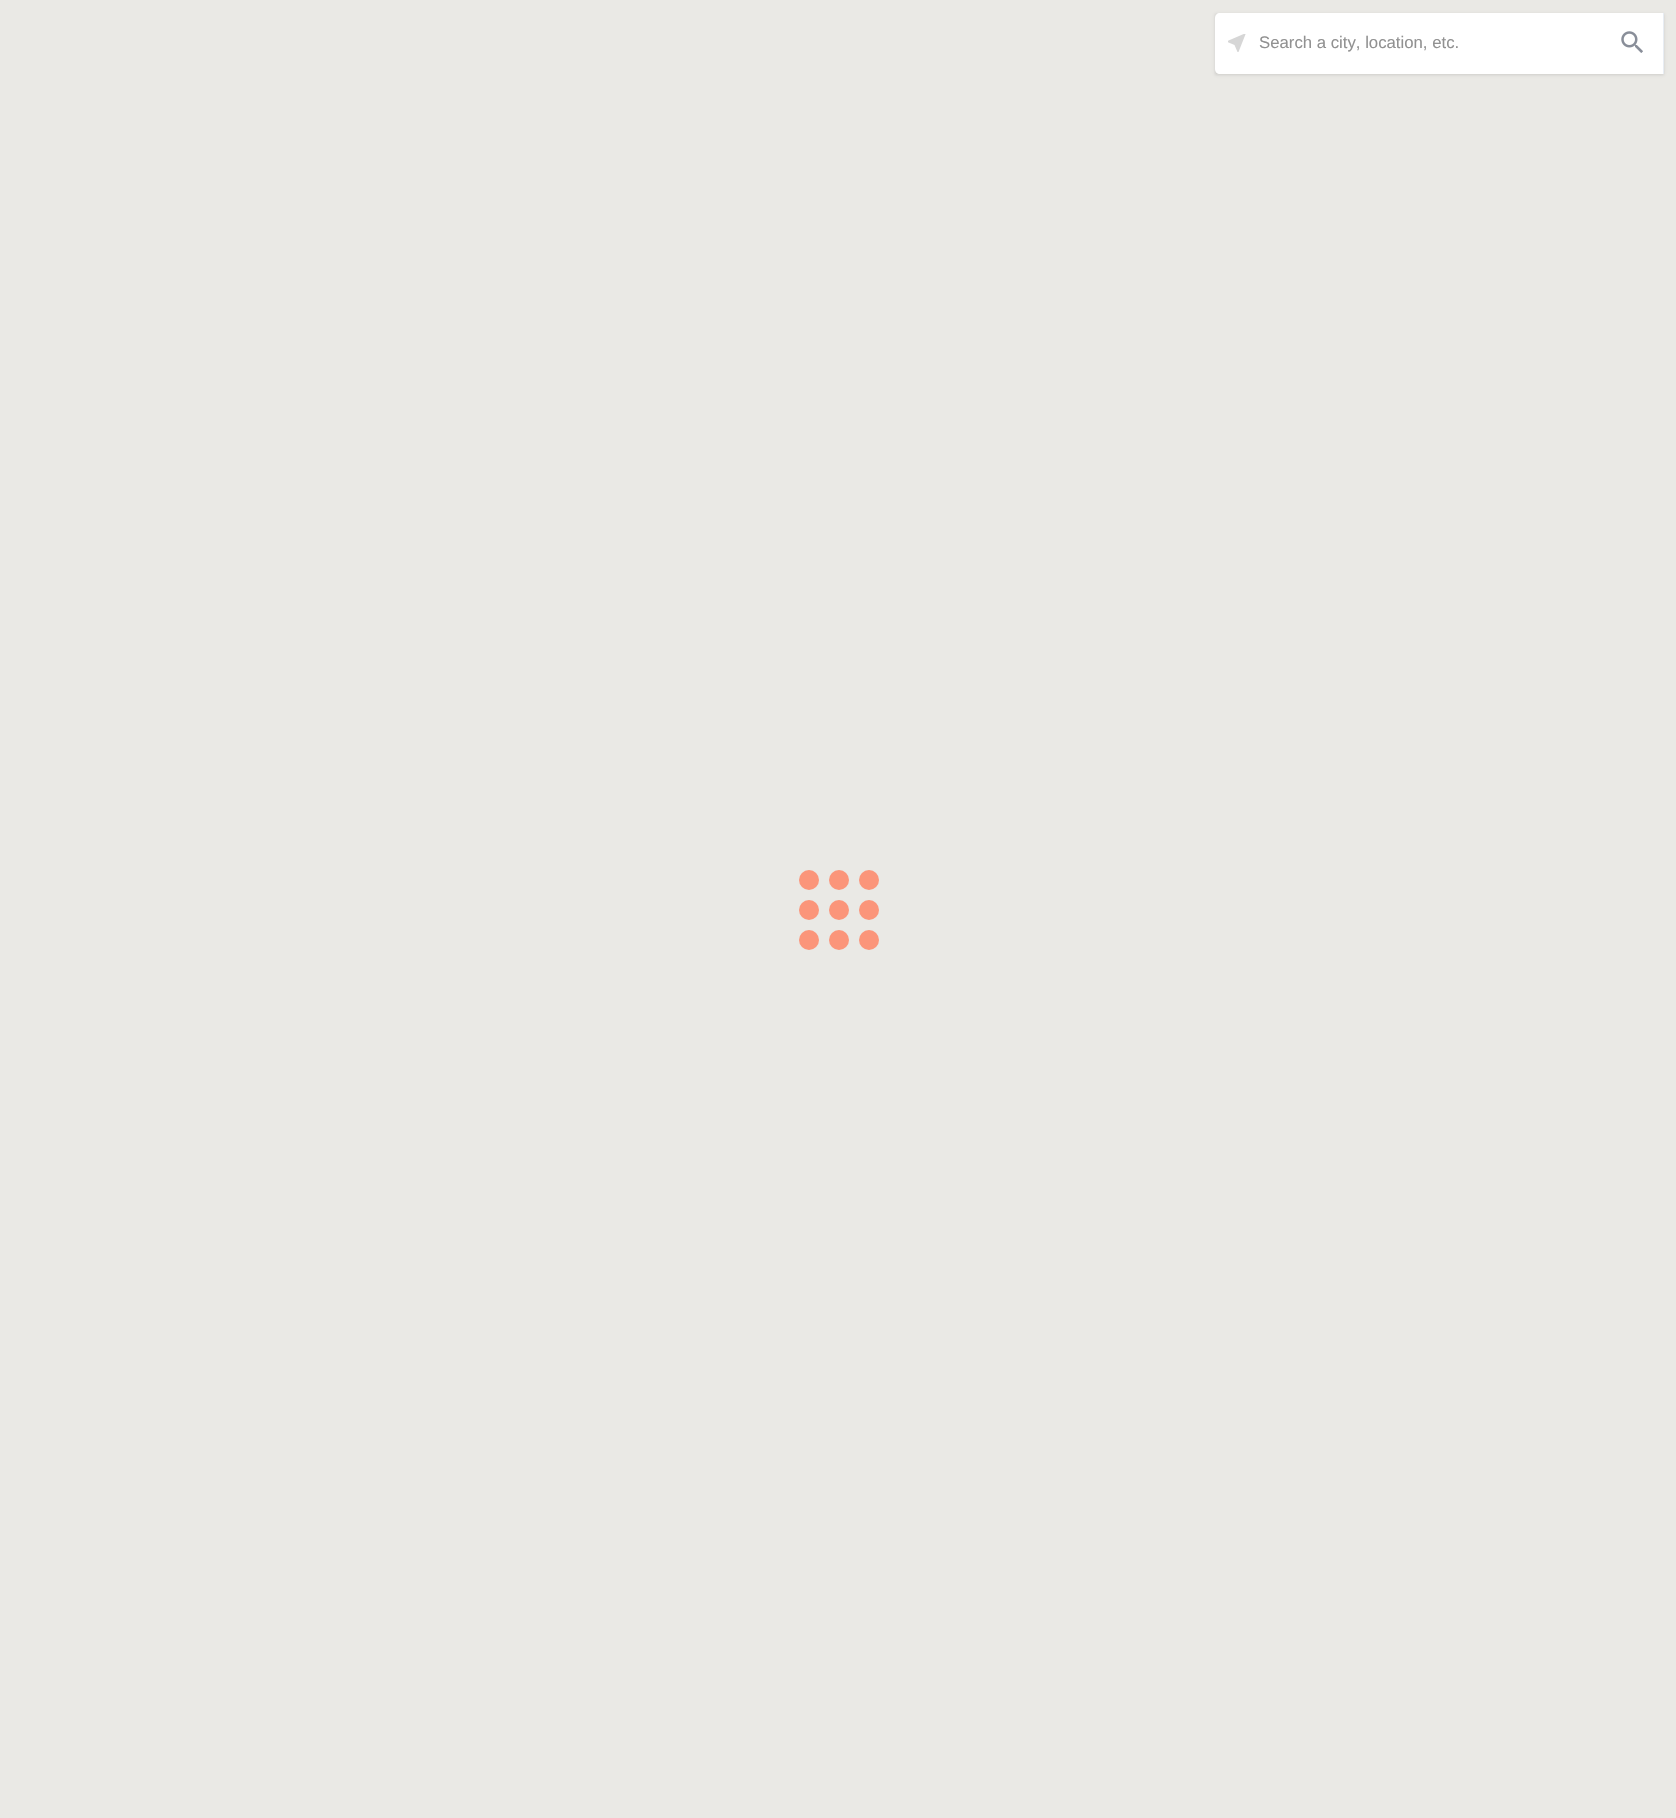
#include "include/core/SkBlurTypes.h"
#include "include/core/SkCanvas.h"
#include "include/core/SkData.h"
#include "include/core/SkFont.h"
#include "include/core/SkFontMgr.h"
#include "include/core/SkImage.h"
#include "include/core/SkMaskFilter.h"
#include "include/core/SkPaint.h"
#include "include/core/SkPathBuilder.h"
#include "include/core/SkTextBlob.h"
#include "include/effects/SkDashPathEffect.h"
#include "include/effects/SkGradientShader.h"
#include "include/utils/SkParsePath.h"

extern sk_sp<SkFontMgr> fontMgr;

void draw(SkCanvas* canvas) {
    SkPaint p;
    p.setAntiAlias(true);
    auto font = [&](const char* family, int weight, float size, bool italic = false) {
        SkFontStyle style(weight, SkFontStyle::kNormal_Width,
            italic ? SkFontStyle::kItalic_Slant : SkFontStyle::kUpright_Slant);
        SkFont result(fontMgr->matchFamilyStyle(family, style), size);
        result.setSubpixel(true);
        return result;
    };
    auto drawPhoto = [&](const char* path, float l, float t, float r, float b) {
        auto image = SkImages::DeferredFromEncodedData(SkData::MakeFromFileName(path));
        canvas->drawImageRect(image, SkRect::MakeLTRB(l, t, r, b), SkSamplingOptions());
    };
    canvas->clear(0xFFEAE9E5);
    p.setColor(0x0F333333);
    p.setMaskFilter(SkMaskFilter::MakeBlur(kNormal_SkBlurStyle, 1));
    canvas->drawRect(SkRect::MakeLTRB(1215, 14, 1664, 75), p);
    p.setMaskFilter(nullptr);
    p.setColor(0x1A333333);
    p.setMaskFilter(SkMaskFilter::MakeBlur(kNormal_SkBlurStyle, 2));
    canvas->drawRect(SkRect::MakeLTRB(1215, 14, 1664, 75), p);
    p.setMaskFilter(nullptr);
    p.setColor(0xFFFFFFFF);
    canvas->drawPath(SkPathBuilder().moveTo(1220, 13).lineTo(1664, 13).lineTo(1664, 74).lineTo(1220, 74).cubicTo(1217, 74, 1215, 72, 1215, 69).lineTo(1215, 18).cubicTo(1215, 15, 1217, 13, 1220, 13).close().detach(), p);
    p.setColor(0xFFE8EDF3);
    canvas->drawRect(SkRect::MakeLTRB(1663, 13, 1664, 74), p);
    canvas->save();
    canvas->clipRect(SkRect::MakeLTRB(1228, 34, 1246, 53));
    p.setColor(0xFFD6D6D6);
    canvas->drawPath(SkPathBuilder().moveTo(1246, 33).lineTo(1227.5f, 41).lineTo(1227.5f, 42).lineTo(1234.5f, 45).lineTo(1237.5f, 52).lineTo(1238.5f, 52).close().detach(), p);
    canvas->restore();
    auto font1 = font("Liberation Sans", 400, 16.75f);
    p.setColor(0xFF919191);
    canvas->drawString("Search a city, location, etc.", 1259, 48, font1, p);
    drawPhoto("media/1.png", 1621, 31, 1643, 53);
    p.setColor(0xFFFB957A);
    canvas->drawCircle(809, 880, 10, p);
    canvas->drawCircle(839, 880, 10, p);
    canvas->drawCircle(869, 880, 10, p);
    canvas->drawCircle(809, 910, 10, p);
    canvas->drawCircle(839, 910, 10, p);
    canvas->drawCircle(869, 910, 10, p);
    canvas->drawCircle(809, 940, 10, p);
    canvas->drawCircle(839, 940, 10, p);
    canvas->drawCircle(869, 940, 10, p);
}
